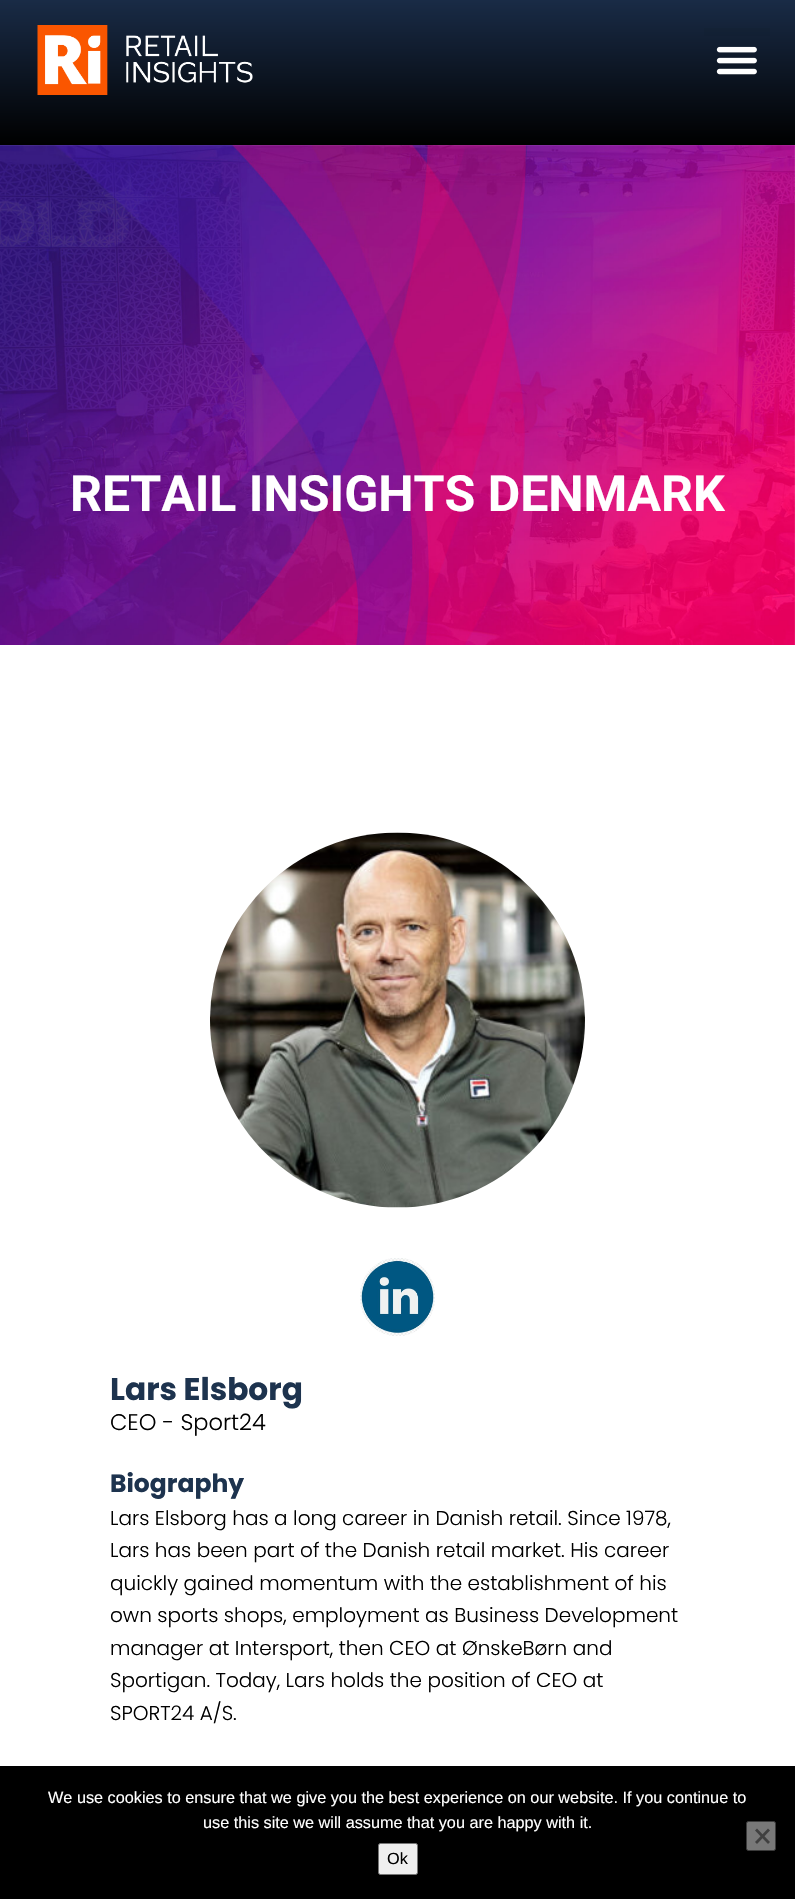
#include "include/core/SkBlurTypes.h"
#include "include/core/SkCanvas.h"
#include "include/core/SkData.h"
#include "include/core/SkFont.h"
#include "include/core/SkFontMgr.h"
#include "include/core/SkImage.h"
#include "include/core/SkMaskFilter.h"
#include "include/core/SkPaint.h"
#include "include/core/SkPathBuilder.h"
#include "include/core/SkTextBlob.h"
#include "include/effects/SkDashPathEffect.h"
#include "include/effects/SkGradientShader.h"
#include "include/utils/SkParsePath.h"

extern sk_sp<SkFontMgr> fontMgr;

void draw(SkCanvas* canvas) {
    SkPaint p;
    p.setAntiAlias(true);
    auto font = [&](const char* family, int weight, float size, bool italic = false) {
        SkFontStyle style(weight, SkFontStyle::kNormal_Width,
            italic ? SkFontStyle::kItalic_Slant : SkFontStyle::kUpright_Slant);
        SkFont result(fontMgr->matchFamilyStyle(family, style), size);
        result.setSubpixel(true);
        return result;
    };
    auto drawPhoto = [&](const char* path, float l, float t, float r, float b) {
        auto image = SkImages::DeferredFromEncodedData(SkData::MakeFromFileName(path));
        canvas->drawImageRect(image, SkRect::MakeLTRB(l, t, r, b), SkSamplingOptions());
    };
    canvas->clear(0xFFFFFFFF);
    {
        const SkColor colors[] = {0xFF192B46, 0xFF000000};
        const float stops[] = {0, 1};
        const SkPoint ends[] = {{398, 0}, {398, 145}};
        p.setShader(SkGradientShader::MakeLinear(ends, colors, stops, 2, SkTileMode::kClamp));
        p.setAlpha(255);
    }
    canvas->drawRect(SkRect::MakeLTRB(0, 0, 795, 145), p);
    drawPhoto("media/1.png", 37, 25, 253, 95);
    p.setShader(nullptr);
    p.setColor(0x0D000000);
    canvas->drawRect(SkRect::MakeLTRB(704, 28, 770, 36), p);
    drawPhoto("media/2.png", 716, 46, 757, 75);
    drawPhoto("media/3.png", 0, 145, 795, 645);
    auto font1 = font("Roboto", 700, 50);
    p.setColor(0xFFFFFFFF);
    canvas->drawString("RETAIL INSIGHTS DENMARK", 70, 511, font1, p);
    drawPhoto("media/4.png", 210, 832, 585, 1208);
    drawPhoto("media/5.png", 360, 1258, 435, 1336);
    auto font2 = font("Poppins", 700, 31.25f);
    p.setColor(0xFF1D334E);
    canvas->drawString("Lars Elsborg", 110, 1400, font2, p);
    auto font3 = font("Poppins", 300, 22.5f);
    p.setColor(0xFF000000);
    canvas->drawString("CEO - Sport24", 110, 1430, font3, p);
    auto font4 = font("Poppins", 700, 25);
    p.setColor(0xFF1D334E);
    canvas->drawString("Biography", 110, 1492, font4, p);
    auto font5 = font("Poppins", 300, 20);
    p.setColor(0xFF000000);
    {
        const struct { const char* s; float x, y; } items[] = {
            {"Lars Elsborg has a long career in Danish retail. Since 1978,", 110, 1525},
            {"Lars has been part of the Danish retail market. His career", 110, 1557},
            {"quickly gained momentum with the establishment of his", 110, 1590},
            {"own sports shops, employment as Business Development", 110, 1622},
            {"manager at Intersport, then CEO at ØnskeBørn and", 110, 1655},
            {"Sportigan. Today, Lars holds the position of CEO at", 110, 1687},
            {"SPORT24 A/S.", 110, 1720},
        };
        for (auto [s, x, y] : items) {
            canvas->drawString(s, x, y, font5, p);
        }
    }
    canvas->drawRect(SkRect::MakeLTRB(0, 1766, 795, 1899), p);
    auto font6 = font("Liberation Sans", 400, 16.25f);
    p.setColor(0xFFFFFFFF);
    canvas->drawString("We use cookies to ensure that we give you the best experience on our website. If you continue to", 48, 1803, font6, p);
    canvas->drawString("use this site we will assume that you are happy with it.", 203, 1828, font6, p);
    p.setColor(0xFF787878);
    canvas->drawRoundRect(SkRect::MakeLTRB(746.5f, 1821.5f, 775.5f, 1850.5f), 2, 2, p);
    p.setStyle(SkPaint::kStroke_Style);
    p.setStrokeWidth(1);
    p.setColor(0xFF3B3B3B);
    canvas->drawRoundRect(SkRect::MakeLTRB(746.5f, 1821.5f, 775.5f, 1850.5f), 2, 2, p);
    p.setStyle(SkPaint::kFill_Style);
    p.setColor(0xFF404040);
    canvas->drawPath(SkPathBuilder().moveTo(768, 1828.5f).lineTo(770, 1830.5f).lineTo(757, 1844).lineTo(755, 1842).close().detach(), p);
    canvas->drawPath(SkPathBuilder().moveTo(755, 1830.5f).lineTo(757, 1828.5f).lineTo(770, 1842).lineTo(768, 1844).close().detach(), p);
    p.setColor(0xFFEFEFEF);
    canvas->drawRoundRect(SkRect::MakeLTRB(378.5f, 1843.5f, 417.5f, 1874.5f), 2, 2, p);
    p.setStyle(SkPaint::kStroke_Style);
    p.setColor(0xFF767676);
    canvas->drawRoundRect(SkRect::MakeLTRB(378.5f, 1843.5f, 417.5f, 1874.5f), 2, 2, p);
    p.setStyle(SkPaint::kFill_Style);
    p.setColor(0xFF000000);
    canvas->drawString("Ok", 387, 1864, font6, p);
}
